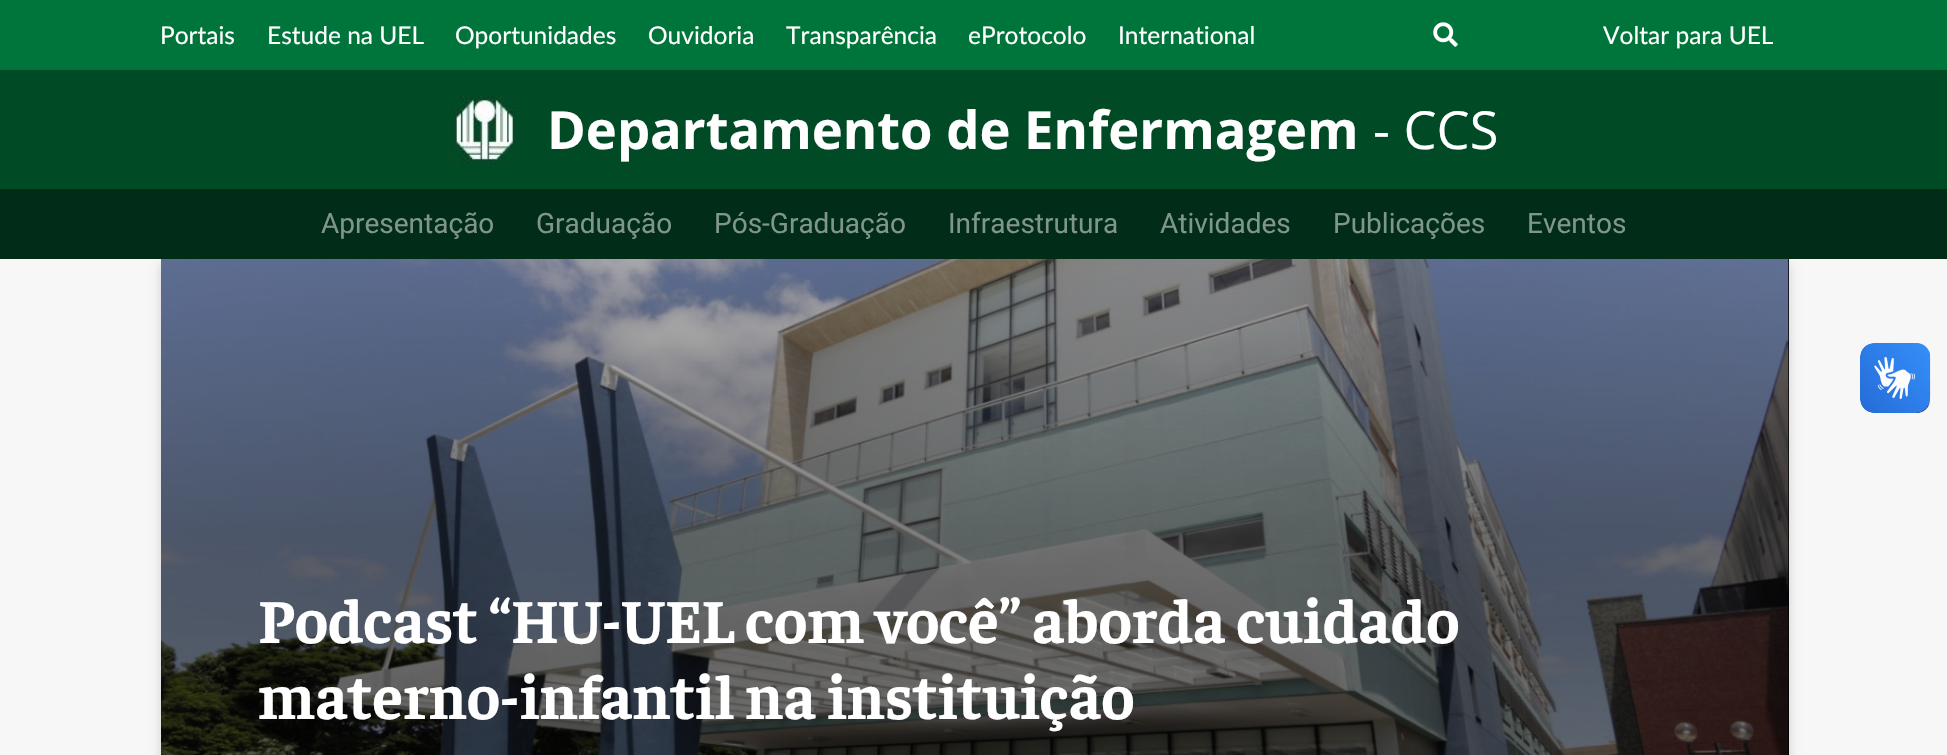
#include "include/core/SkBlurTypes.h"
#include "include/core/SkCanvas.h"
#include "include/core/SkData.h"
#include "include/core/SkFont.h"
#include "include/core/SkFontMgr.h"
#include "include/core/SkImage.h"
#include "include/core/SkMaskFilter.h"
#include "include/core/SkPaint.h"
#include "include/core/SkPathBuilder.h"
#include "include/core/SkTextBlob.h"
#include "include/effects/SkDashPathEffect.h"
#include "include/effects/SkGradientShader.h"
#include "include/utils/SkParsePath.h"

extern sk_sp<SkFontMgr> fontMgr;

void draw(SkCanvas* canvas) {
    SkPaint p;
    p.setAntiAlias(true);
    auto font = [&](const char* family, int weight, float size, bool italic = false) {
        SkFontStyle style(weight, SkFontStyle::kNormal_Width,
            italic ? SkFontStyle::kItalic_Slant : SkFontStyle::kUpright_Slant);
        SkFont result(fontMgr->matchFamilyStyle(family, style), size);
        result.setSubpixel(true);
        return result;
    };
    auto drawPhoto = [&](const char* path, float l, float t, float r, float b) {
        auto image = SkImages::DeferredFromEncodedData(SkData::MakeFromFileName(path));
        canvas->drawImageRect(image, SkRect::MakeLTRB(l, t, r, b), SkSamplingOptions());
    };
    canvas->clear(0xFFF7F7F7);
    p.setColor(0xFF00753B);
    canvas->drawRect(SkRect::MakeLTRB(0, 0, 1947, 70), p);
    auto font1 = font("Lato", 400, 24.5f);
    p.setColor(0xFFFFFFFF);
    {
        const struct { const char* s; float x, y; } items[] = {
            {"Portais", 160, 44},
            {"Estude na UEL", 267, 44},
            {"Oportunidades", 455, 44},
            {"Ouvidoria", 648, 44},
            {"Transparência", 786, 44},
            {"eProtocolo", 968, 44},
            {"International", 1118, 44},
        };
        for (auto [s, x, y] : items) {
            canvas->drawString(s, x, y, font1, p);
        }
    }
    drawPhoto("media/1.png", 1433, 22, 1458, 47);
    canvas->drawString("Voltar para UEL", 1603, 44, font1, p);
    p.setColor(0x29000000);
    p.setMaskFilter(SkMaskFilter::MakeBlur(kNormal_SkBlurStyle, 5));
    canvas->drawRect(SkRect::MakeLTRB(161, 264, 1789, 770), p);
    p.setMaskFilter(nullptr);
    p.setColor(0xFF002C18);
    canvas->drawRect(SkRect::MakeLTRB(0, 189, 1947, 259), p);
    p.setColor(0xFF004A25);
    canvas->drawRect(SkRect::MakeLTRB(0, 70, 1947, 189), p);
    drawPhoto("media/2.png", 450, 94, 517, 164);
    auto font2 = font("Open Sans", 700, 52.5f);
    p.setColor(0xFFFFFFFF);
    canvas->drawString("Departamento de Enfermagem", 547, 149, font2, p);
    auto font3 = font("Open Sans", 400, 52.5f);
    canvas->drawString("- CCS", 1373, 149, font3, p);
    auto font4 = font("Roboto", 400, 28);
    p.setColor(0xFF80968C);
    {
        const struct { const char* s; float x, y; } items[] = {
            {"Apresentação", 321, 233},
            {"Graduação", 536, 233},
            {"Pós-Graduação", 714, 233},
            {"Infraestrutura", 948, 233},
            {"Atividades", 1160, 233},
            {"Publicações", 1333, 233},
            {"Eventos", 1527, 233},
        };
        for (auto [s, x, y] : items) {
            canvas->drawString(s, x, y, font4, p);
        }
    }
    p.setColor(0xFF000000);
    canvas->drawRect(SkRect::MakeLTRB(1788, 259, 1789, 755), p);
    drawPhoto("media/3.png", 161, 259, 1789, 755);
    {
        const SkColor colors[] = {0x42000000, 0x80000000, 0x87000000, 0x80000000};
        const float stops[] = {0, 0.5f, 0.67f, 1};
        const SkPoint ends[] = {{975, 259}, {975, 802}};
        p.setShader(SkGradientShader::MakeLinear(ends, colors, stops, 4, SkTileMode::kClamp));
        p.setAlpha(255);
    }
    canvas->drawRect(SkRect::MakeLTRB(161, 259, 1789, 755), p);
    auto font5 = font("Faustina", 700, 63);
    p.setShader(nullptr);
    p.setColor(0xFFFFFFFF);
    canvas->drawString("Podcast “HU-UEL com você” aborda cuidado", 258, 643, font5, p);
    canvas->drawString("materno-infantil na instituição", 258, 719, font5, p);
    drawPhoto("media/4.png", 1860, 343, 1931, 413);
    drawPhoto("media/5.png", 1860, 343, 1930, 413);
}
